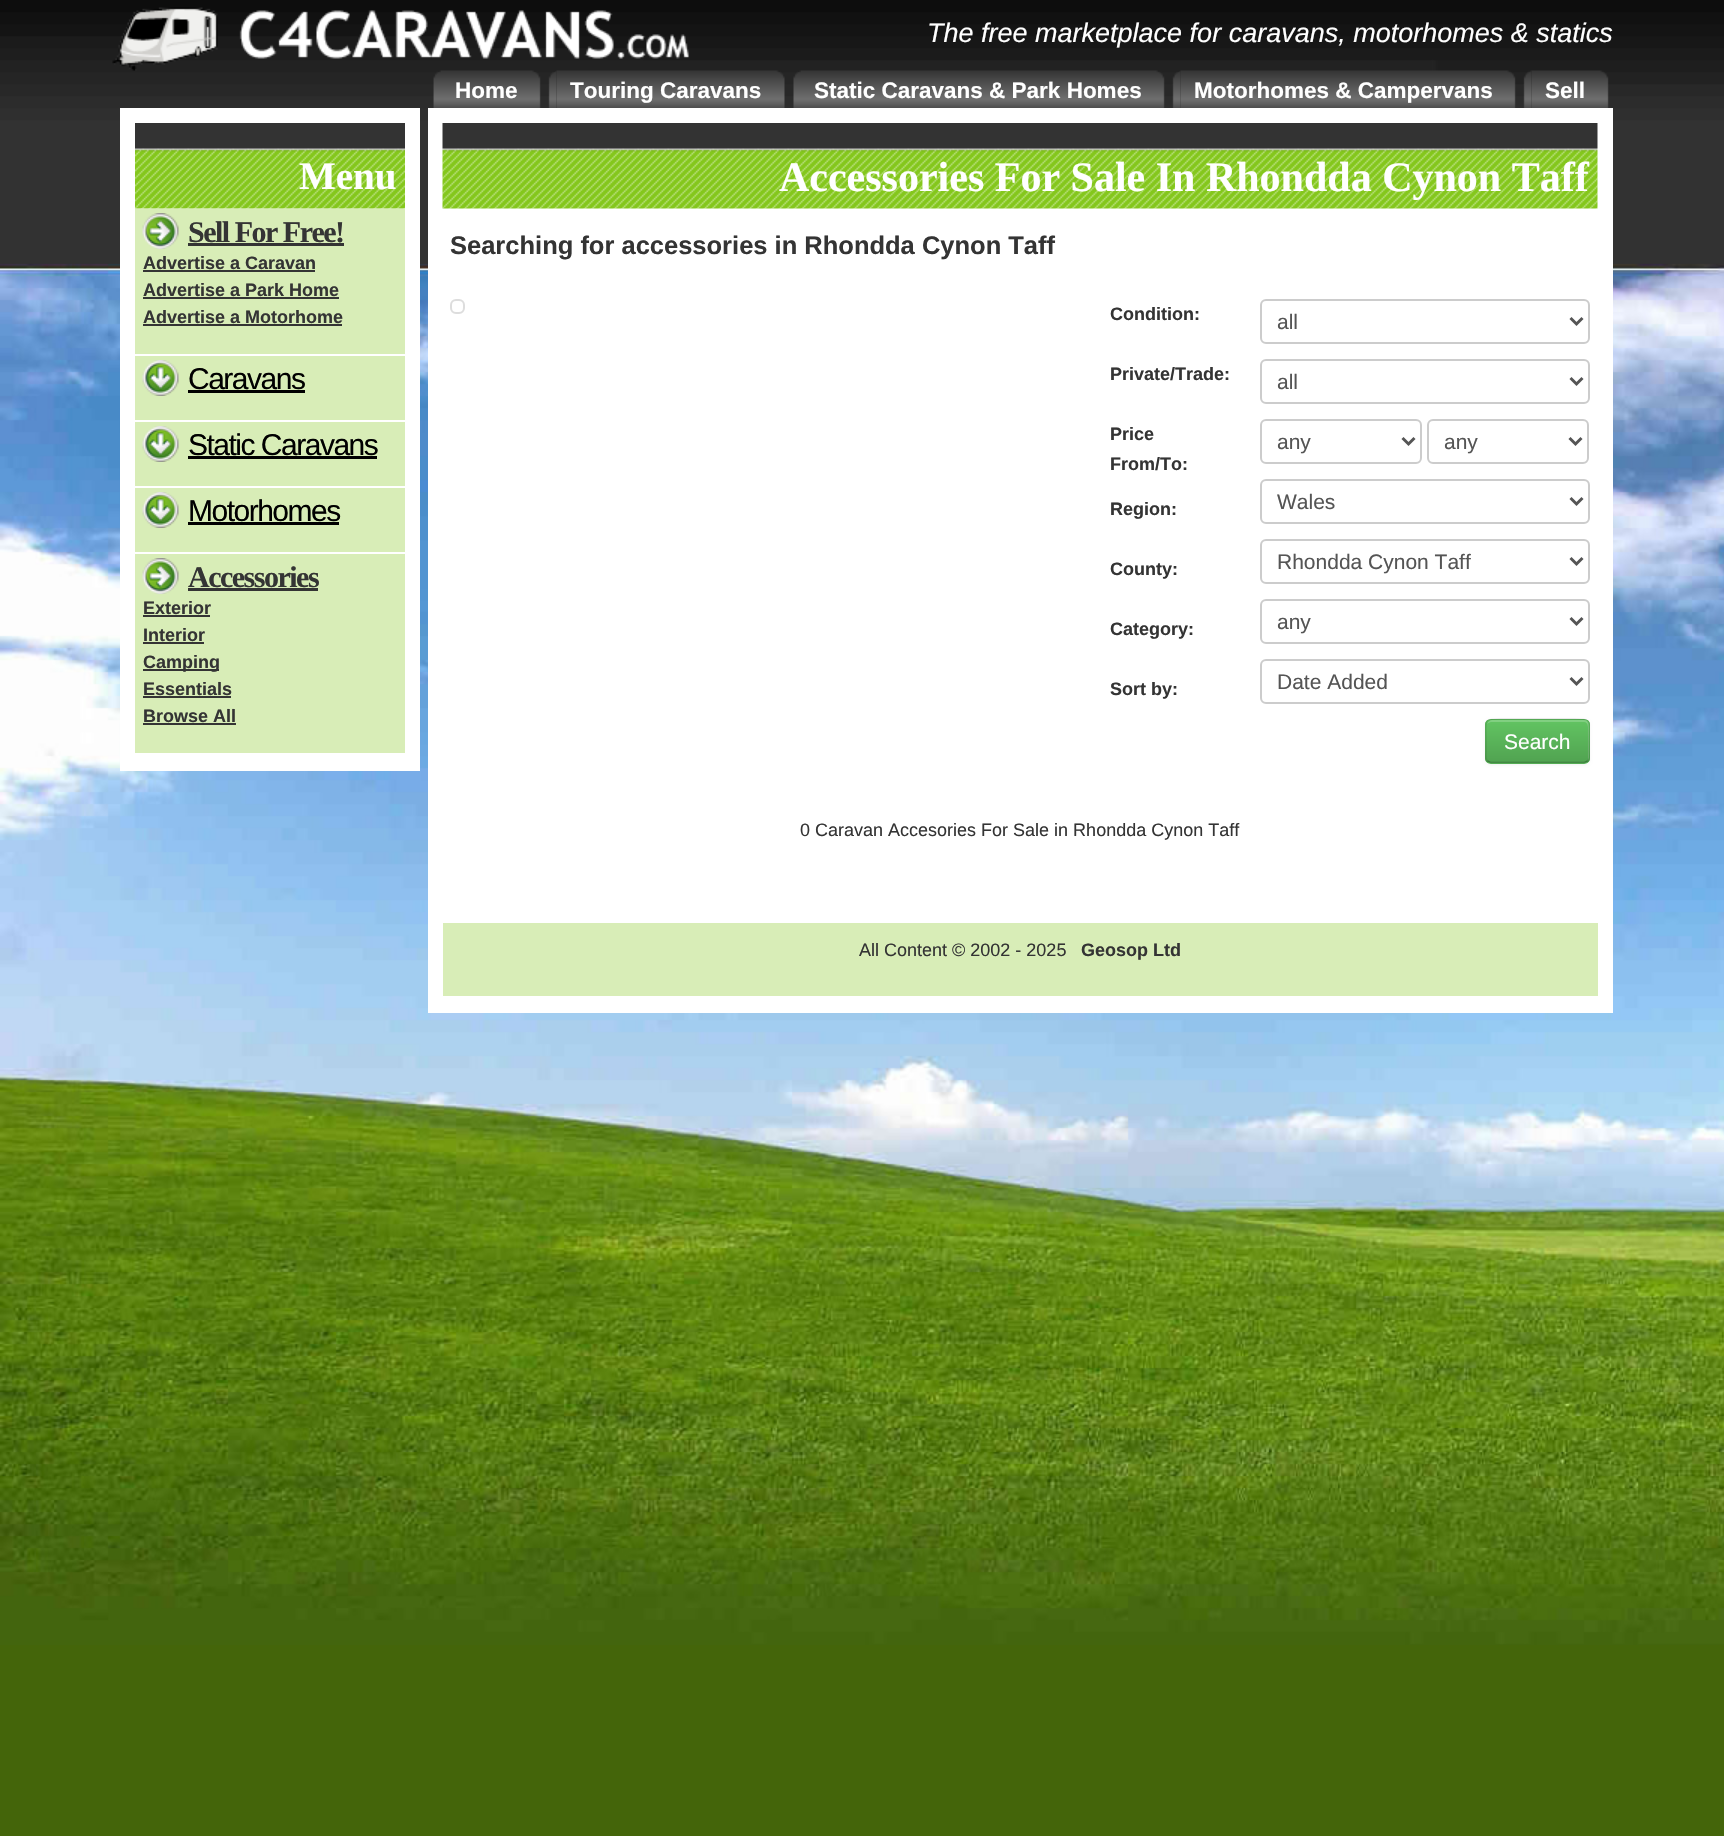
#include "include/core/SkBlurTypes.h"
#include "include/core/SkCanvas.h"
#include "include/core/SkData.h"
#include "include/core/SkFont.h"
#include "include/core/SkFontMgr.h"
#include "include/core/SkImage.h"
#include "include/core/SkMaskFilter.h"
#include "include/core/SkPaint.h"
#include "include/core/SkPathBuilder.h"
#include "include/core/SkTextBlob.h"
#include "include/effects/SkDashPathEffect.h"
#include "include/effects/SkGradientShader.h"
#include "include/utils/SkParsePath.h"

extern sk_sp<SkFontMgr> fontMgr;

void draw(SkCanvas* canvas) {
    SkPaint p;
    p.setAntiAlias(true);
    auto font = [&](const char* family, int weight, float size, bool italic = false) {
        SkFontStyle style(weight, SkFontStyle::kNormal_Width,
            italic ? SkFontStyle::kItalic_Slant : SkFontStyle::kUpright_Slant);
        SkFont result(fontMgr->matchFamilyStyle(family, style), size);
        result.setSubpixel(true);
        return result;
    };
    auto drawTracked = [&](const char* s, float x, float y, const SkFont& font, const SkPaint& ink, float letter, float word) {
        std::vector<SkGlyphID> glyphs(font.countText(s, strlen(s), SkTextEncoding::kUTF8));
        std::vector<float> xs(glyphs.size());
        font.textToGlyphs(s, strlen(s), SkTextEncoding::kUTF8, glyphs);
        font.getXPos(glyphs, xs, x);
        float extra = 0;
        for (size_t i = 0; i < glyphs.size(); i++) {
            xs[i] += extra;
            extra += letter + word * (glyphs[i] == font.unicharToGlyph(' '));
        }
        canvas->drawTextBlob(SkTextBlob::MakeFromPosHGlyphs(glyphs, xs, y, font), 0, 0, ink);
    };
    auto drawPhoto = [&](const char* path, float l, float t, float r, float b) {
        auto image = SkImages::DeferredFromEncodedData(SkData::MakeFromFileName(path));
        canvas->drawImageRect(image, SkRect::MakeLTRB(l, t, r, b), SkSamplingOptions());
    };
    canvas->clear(0xFF44650A);
    drawPhoto("media/1.png", 0, 0, 1724, 1645);
    drawPhoto("media/2.png", 112, 7, 689, 71);
    auto font1 = font("Liberation Sans", 400, 27, true);
    p.setColor(0xFFFFFFFF);
    canvas->drawString("The free marketplace for caravans, motorhomes & statics", 927, 42, font1, p);
    drawPhoto("media/3.png", 433, 70, 441, 108);
    drawPhoto("media/4.png", 441, 70, 541, 108);
    auto font2 = font("Liberation Sans", 700, 22.5f);
    canvas->drawString("Home", 455, 98, font2, p);
    drawPhoto("media/5.png", 548, 71, 557, 108);
    drawPhoto("media/6.png", 556, 70, 785, 108);
    canvas->drawString("Touring Caravans", 570, 98, font2, p);
    drawPhoto("media/7.png", 793, 70, 801, 108);
    drawPhoto("media/8.png", 801, 70, 1165, 108);
    canvas->drawString("Static Caravans & Park Homes", 814, 98, font2, p);
    drawPhoto("media/5.png", 1172, 71, 1181, 108);
    drawPhoto("media/9.png", 1180, 70, 1516, 108);
    canvas->drawString("Motorhomes & Campervans", 1194, 98, font2, p);
    drawPhoto("media/10.png", 1523, 70, 1532, 108);
    drawPhoto("media/11.png", 1531, 70, 1609, 108);
    canvas->drawString("Sell", 1545, 98, font2, p);
    canvas->drawRect(SkRect::MakeLTRB(120, 108, 420, 771), p);
    drawPhoto("media/12.png", 135, 123, 405, 209);
    auto font3 = font("Liberation Serif", 700, 39);
    canvas->drawString("Menu", 299, 189, font3, p);
    p.setColor(0xFFD8EDB7);
    canvas->drawRect(SkRect::MakeLTRB(135, 209, 405, 354), p);
    drawPhoto("media/13.png", 142, 213, 179, 249);
    auto font4 = font("Liberation Serif", 700, 30);
    p.setColor(0xFF343434);
    drawTracked("Sell For Free!", 188, 242, font4, p, -1.5f, 0);
    canvas->drawRect(SkRect::MakeLTRB(188, 243, 344, 246), p);
    auto font5 = font("Liberation Sans", 700, 18);
    canvas->drawString("Advertise a Caravan", 143, 269, font5, p);
    canvas->drawRect(SkRect::MakeLTRB(143, 270, 315, 272), p);
    canvas->drawString("Advertise a Park Home", 143, 296, font5, p);
    canvas->drawRect(SkRect::MakeLTRB(143, 297, 339, 299), p);
    canvas->drawString("Advertise a Motorhome", 143, 323, font5, p);
    canvas->drawRect(SkRect::MakeLTRB(143, 324, 342, 326), p);
    p.setColor(0xFFD8EDB7);
    canvas->drawRect(SkRect::MakeLTRB(135, 356, 405, 420), p);
    drawPhoto("media/14.png", 142, 360, 179, 396);
    auto font6 = font("Liberation Sans", 400, 30);
    p.setColor(0xFF000000);
    drawTracked("Caravans", 188, 389, font6, p, -1.5f, 0);
    canvas->drawRect(SkRect::MakeLTRB(188, 390, 305, 393), p);
    p.setColor(0xFFD8EDB7);
    canvas->drawRect(SkRect::MakeLTRB(135, 422, 405, 486), p);
    drawPhoto("media/14.png", 142, 426, 179, 462);
    p.setColor(0xFF000000);
    drawTracked("Static Caravans", 188, 455, font6, p, -1.5f, 0);
    canvas->drawRect(SkRect::MakeLTRB(188, 456, 377, 459), p);
    p.setColor(0xFFD8EDB7);
    canvas->drawRect(SkRect::MakeLTRB(135, 488, 405, 552), p);
    drawPhoto("media/14.png", 142, 492, 179, 528);
    p.setColor(0xFF000000);
    drawTracked("Motorhomes", 188, 521, font6, p, -1.5f, 0);
    canvas->drawRect(SkRect::MakeLTRB(188, 522, 339, 525), p);
    p.setColor(0xFFD8EDB7);
    canvas->drawRect(SkRect::MakeLTRB(135, 554, 405, 753), p);
    drawPhoto("media/13.png", 142, 558, 179, 594);
    p.setColor(0xFF343434);
    drawTracked("Accessories", 188, 587, font4, p, -1.5f, 0);
    canvas->drawRect(SkRect::MakeLTRB(188, 588, 318, 591), p);
    canvas->drawString("Exterior", 143, 614, font5, p);
    canvas->drawRect(SkRect::MakeLTRB(143, 615, 210, 617), p);
    canvas->drawString("Interior", 143, 641, font5, p);
    canvas->drawRect(SkRect::MakeLTRB(143, 642, 204, 644), p);
    canvas->drawRect(SkRect::MakeLTRB(143, 669, 219, 671), p);
    canvas->drawString("Camping", 143, 668, font5, p);
    canvas->drawString("Essentials", 143, 695, font5, p);
    canvas->drawRect(SkRect::MakeLTRB(143, 696, 231, 698), p);
    canvas->drawString("Browse All", 143, 722, font5, p);
    canvas->drawRect(SkRect::MakeLTRB(143, 723, 236, 725), p);
    p.setColor(0xFFFFFFFF);
    canvas->drawRect(SkRect::MakeLTRB(428, 108, 1613, 1013), p);
    drawPhoto("media/15.png", 442, 123, 1598, 209);
    auto font7 = font("Liberation Serif", 700, 42);
    canvas->drawString("Accessories For Sale In Rhondda Cynon Taff", 779, 191, font7, p);
    auto font8 = font("Liberation Sans", 700, 25.5f);
    p.setColor(0xFF343434);
    canvas->drawString("Searching for accessories in Rhondda Cynon Taff", 450, 254, font8, p);
    p.setStyle(SkPaint::kStroke_Style);
    p.setStrokeWidth(2);
    p.setColor(0xFFDDDDDD);
    canvas->drawRoundRect(SkRect::MakeLTRB(451, 300, 464, 313), 5, 5, p);
    p.setStyle(SkPaint::kFill_Style);
    p.setColor(0xFF343434);
    canvas->drawString("Condition:", 1110, 320, font5, p);
    p.setStyle(SkPaint::kStroke_Style);
    p.setColor(0xFFCCCCCC);
    canvas->drawRoundRect(SkRect::MakeLTRB(1261, 300, 1589, 343), 5, 5, p);
    p.setStrokeWidth(3);
    p.setColor(0xFF555555);
    canvas->drawPath(SkPathBuilder().moveTo(1570.5f, 318).lineTo(1576.5f, 324).lineTo(1582.5f, 318).detach(), p);
    auto font9 = font("Liberation Sans", 400, 21);
    p.setStyle(SkPaint::kFill_Style);
    canvas->drawString("all", 1277, 329, font9, p);
    p.setColor(0xFF343434);
    canvas->drawString("Private/Trade:", 1110, 380, font5, p);
    p.setStyle(SkPaint::kStroke_Style);
    p.setStrokeWidth(2);
    p.setColor(0xFFCCCCCC);
    canvas->drawRoundRect(SkRect::MakeLTRB(1261, 360, 1589, 403), 5, 5, p);
    p.setStrokeWidth(3);
    p.setColor(0xFF555555);
    canvas->drawPath(SkPathBuilder().moveTo(1570.5f, 378).lineTo(1576.5f, 384).lineTo(1582.5f, 378).detach(), p);
    p.setStyle(SkPaint::kFill_Style);
    canvas->drawString("all", 1277, 389, font9, p);
    p.setColor(0xFF343434);
    canvas->drawString("Price", 1110, 440, font5, p);
    canvas->drawString("From/To:", 1110, 470, font5, p);
    p.setStyle(SkPaint::kStroke_Style);
    p.setStrokeWidth(2);
    p.setColor(0xFFCCCCCC);
    canvas->drawRoundRect(SkRect::MakeLTRB(1261, 420, 1421, 463), 5, 5, p);
    p.setStrokeWidth(3);
    p.setColor(0xFF555555);
    canvas->drawPath(SkPathBuilder().moveTo(1402.5f, 438).lineTo(1408.5f, 444).lineTo(1414.5f, 438).detach(), p);
    p.setStyle(SkPaint::kFill_Style);
    canvas->drawString("any", 1277, 449, font9, p);
    p.setStyle(SkPaint::kStroke_Style);
    p.setStrokeWidth(2);
    p.setColor(0xFFCCCCCC);
    canvas->drawRoundRect(SkRect::MakeLTRB(1428, 420, 1588, 463), 5, 5, p);
    p.setStrokeWidth(3);
    p.setColor(0xFF555555);
    canvas->drawPath(SkPathBuilder().moveTo(1569.5f, 438).lineTo(1575.5f, 444).lineTo(1581.5f, 438).detach(), p);
    p.setStyle(SkPaint::kFill_Style);
    canvas->drawString("any", 1444, 449, font9, p);
    p.setColor(0xFF343434);
    canvas->drawString("Region:", 1110, 515, font5, p);
    p.setStyle(SkPaint::kStroke_Style);
    p.setStrokeWidth(2);
    p.setColor(0xFFCCCCCC);
    canvas->drawRoundRect(SkRect::MakeLTRB(1261, 480, 1589, 523), 5, 5, p);
    p.setStrokeWidth(3);
    p.setColor(0xFF555555);
    canvas->drawPath(SkPathBuilder().moveTo(1570.5f, 498).lineTo(1576.5f, 504).lineTo(1582.5f, 498).detach(), p);
    p.setStyle(SkPaint::kFill_Style);
    canvas->drawString("Wales", 1277, 509, font9, p);
    p.setColor(0xFF343434);
    canvas->drawString("County:", 1110, 575, font5, p);
    p.setStyle(SkPaint::kStroke_Style);
    p.setStrokeWidth(2);
    p.setColor(0xFFCCCCCC);
    canvas->drawRoundRect(SkRect::MakeLTRB(1261, 540, 1589, 583), 5, 5, p);
    p.setStrokeWidth(3);
    p.setColor(0xFF555555);
    canvas->drawPath(SkPathBuilder().moveTo(1570.5f, 558).lineTo(1576.5f, 564).lineTo(1582.5f, 558).detach(), p);
    p.setStyle(SkPaint::kFill_Style);
    canvas->drawString("Rhondda Cynon Taff", 1277, 569, font9, p);
    p.setColor(0xFF343434);
    canvas->drawString("Category:", 1110, 635, font5, p);
    p.setStyle(SkPaint::kStroke_Style);
    p.setStrokeWidth(2);
    p.setColor(0xFFCCCCCC);
    canvas->drawRoundRect(SkRect::MakeLTRB(1261, 600, 1589, 643), 5, 5, p);
    p.setStrokeWidth(3);
    p.setColor(0xFF555555);
    canvas->drawPath(SkPathBuilder().moveTo(1570.5f, 618).lineTo(1576.5f, 624).lineTo(1582.5f, 618).detach(), p);
    p.setStyle(SkPaint::kFill_Style);
    canvas->drawString("any", 1277, 629, font9, p);
    p.setColor(0xFF343434);
    canvas->drawString("Sort by:", 1110, 695, font5, p);
    p.setStyle(SkPaint::kStroke_Style);
    p.setStrokeWidth(2);
    p.setColor(0xFFCCCCCC);
    canvas->drawRoundRect(SkRect::MakeLTRB(1261, 660, 1589, 703), 5, 5, p);
    p.setStrokeWidth(3);
    p.setColor(0xFF555555);
    canvas->drawPath(SkPathBuilder().moveTo(1570.5f, 678).lineTo(1576.5f, 684).lineTo(1582.5f, 678).detach(), p);
    p.setStyle(SkPaint::kFill_Style);
    canvas->drawString("Date Added", 1277, 689, font9, p);
    p.setColor(0x0D000000);
    p.setMaskFilter(SkMaskFilter::MakeBlur(kNormal_SkBlurStyle, 1.5f));
    canvas->drawRoundRect(SkRect::MakeLTRB(1485, 720, 1590, 765), 6, 6, p);
    p.setMaskFilter(nullptr);
    p.setColor(0xFF5BB75B);
    canvas->drawRoundRect(SkRect::MakeLTRB(1485, 719, 1590, 764), 6, 6, p);
    canvas->save();
    canvas->clipPath(SkPathBuilder().moveTo(1491, 719).lineTo(1584, 719).cubicTo(1587.5f, 719, 1590, 721.5f, 1590, 725).lineTo(1590, 758).cubicTo(1590, 761.5f, 1587.5f, 764, 1584, 764).lineTo(1491, 764).cubicTo(1487.5f, 764, 1485, 761.5f, 1485, 758).lineTo(1485, 725).cubicTo(1485, 721.5f, 1487.5f, 719, 1491, 719).close().detach(), true);
    {
        const SkColor colors[] = {0xFF62C462, 0xFF51A351};
        const float stops[] = {0, 1};
        const SkPoint ends[] = {{1538, 720}, {1538, 762}};
        p.setShader(SkGradientShader::MakeLinear(ends, colors, stops, 2, SkTileMode::kClamp));
        p.setAlpha(255);
    }
    canvas->drawRect(SkRect::MakeLTRB(1485, 720, 1590, 762), p);
    canvas->restore();
    p.setShader(nullptr);
    p.setColor(0x33FFFFFF);
    canvas->drawPath(SkPathBuilder().moveTo(1491, 722).lineTo(1584, 722).cubicTo(1589, 722, 1588, 729, 1588, 732).lineTo(1588, 760).cubicTo(1589, 759, 1589, 758, 1589, 757).lineTo(1589, 725).cubicTo(1589, 722, 1587, 720, 1584, 720).lineTo(1492, 720).cubicTo(1490, 720, 1488, 722, 1487, 724).cubicTo(1488, 723, 1490, 722, 1491, 722).close().detach(), p);
    p.setStyle(SkPaint::kStroke_Style);
    p.setStrokeWidth(1.5f);
    p.setColor(0x40000000);
    canvas->drawPath(SkPathBuilder().moveTo(1587.5f, 761).lineTo(1584.5f, 762.5f).lineTo(1490.5f, 762.5f).lineTo(1487.5f, 761).detach(), p);
    p.setColor(0x1A000000);
    canvas->drawPath(SkPathBuilder().moveTo(1487.5f, 761).cubicTo(1485, 759, 1486, 755, 1486, 752).lineTo(1486, 741).cubicTo(1486, 717, 1482, 719, 1506.5f, 719).lineTo(1568.5f, 719).cubicTo(1593, 719, 1589, 717, 1589, 741).lineTo(1589, 752).cubicTo(1589, 755, 1590, 759, 1587.5f, 761).detach(), p);
    p.setStyle(SkPaint::kFill_Style);
    p.setColor(0xFFFFFFFF);
    canvas->drawString("Search", 1504, 749, font9, p);
    auto font10 = font("Liberation Sans", 400, 18);
    p.setColor(0xFF343434);
    canvas->drawString("0 Caravan Accesories For Sale in Rhondda Cynon Taff", 800, 836, font10, p);
    p.setColor(0xFFD8EDB7);
    canvas->drawRect(SkRect::MakeLTRB(443, 923, 1598, 996), p);
    p.setColor(0xFF343434);
    canvas->drawString("All Content © 2002 - 2025", 859, 956, font10, p);
    canvas->drawString("Geosop Ltd", 1081, 956, font5, p);
}
